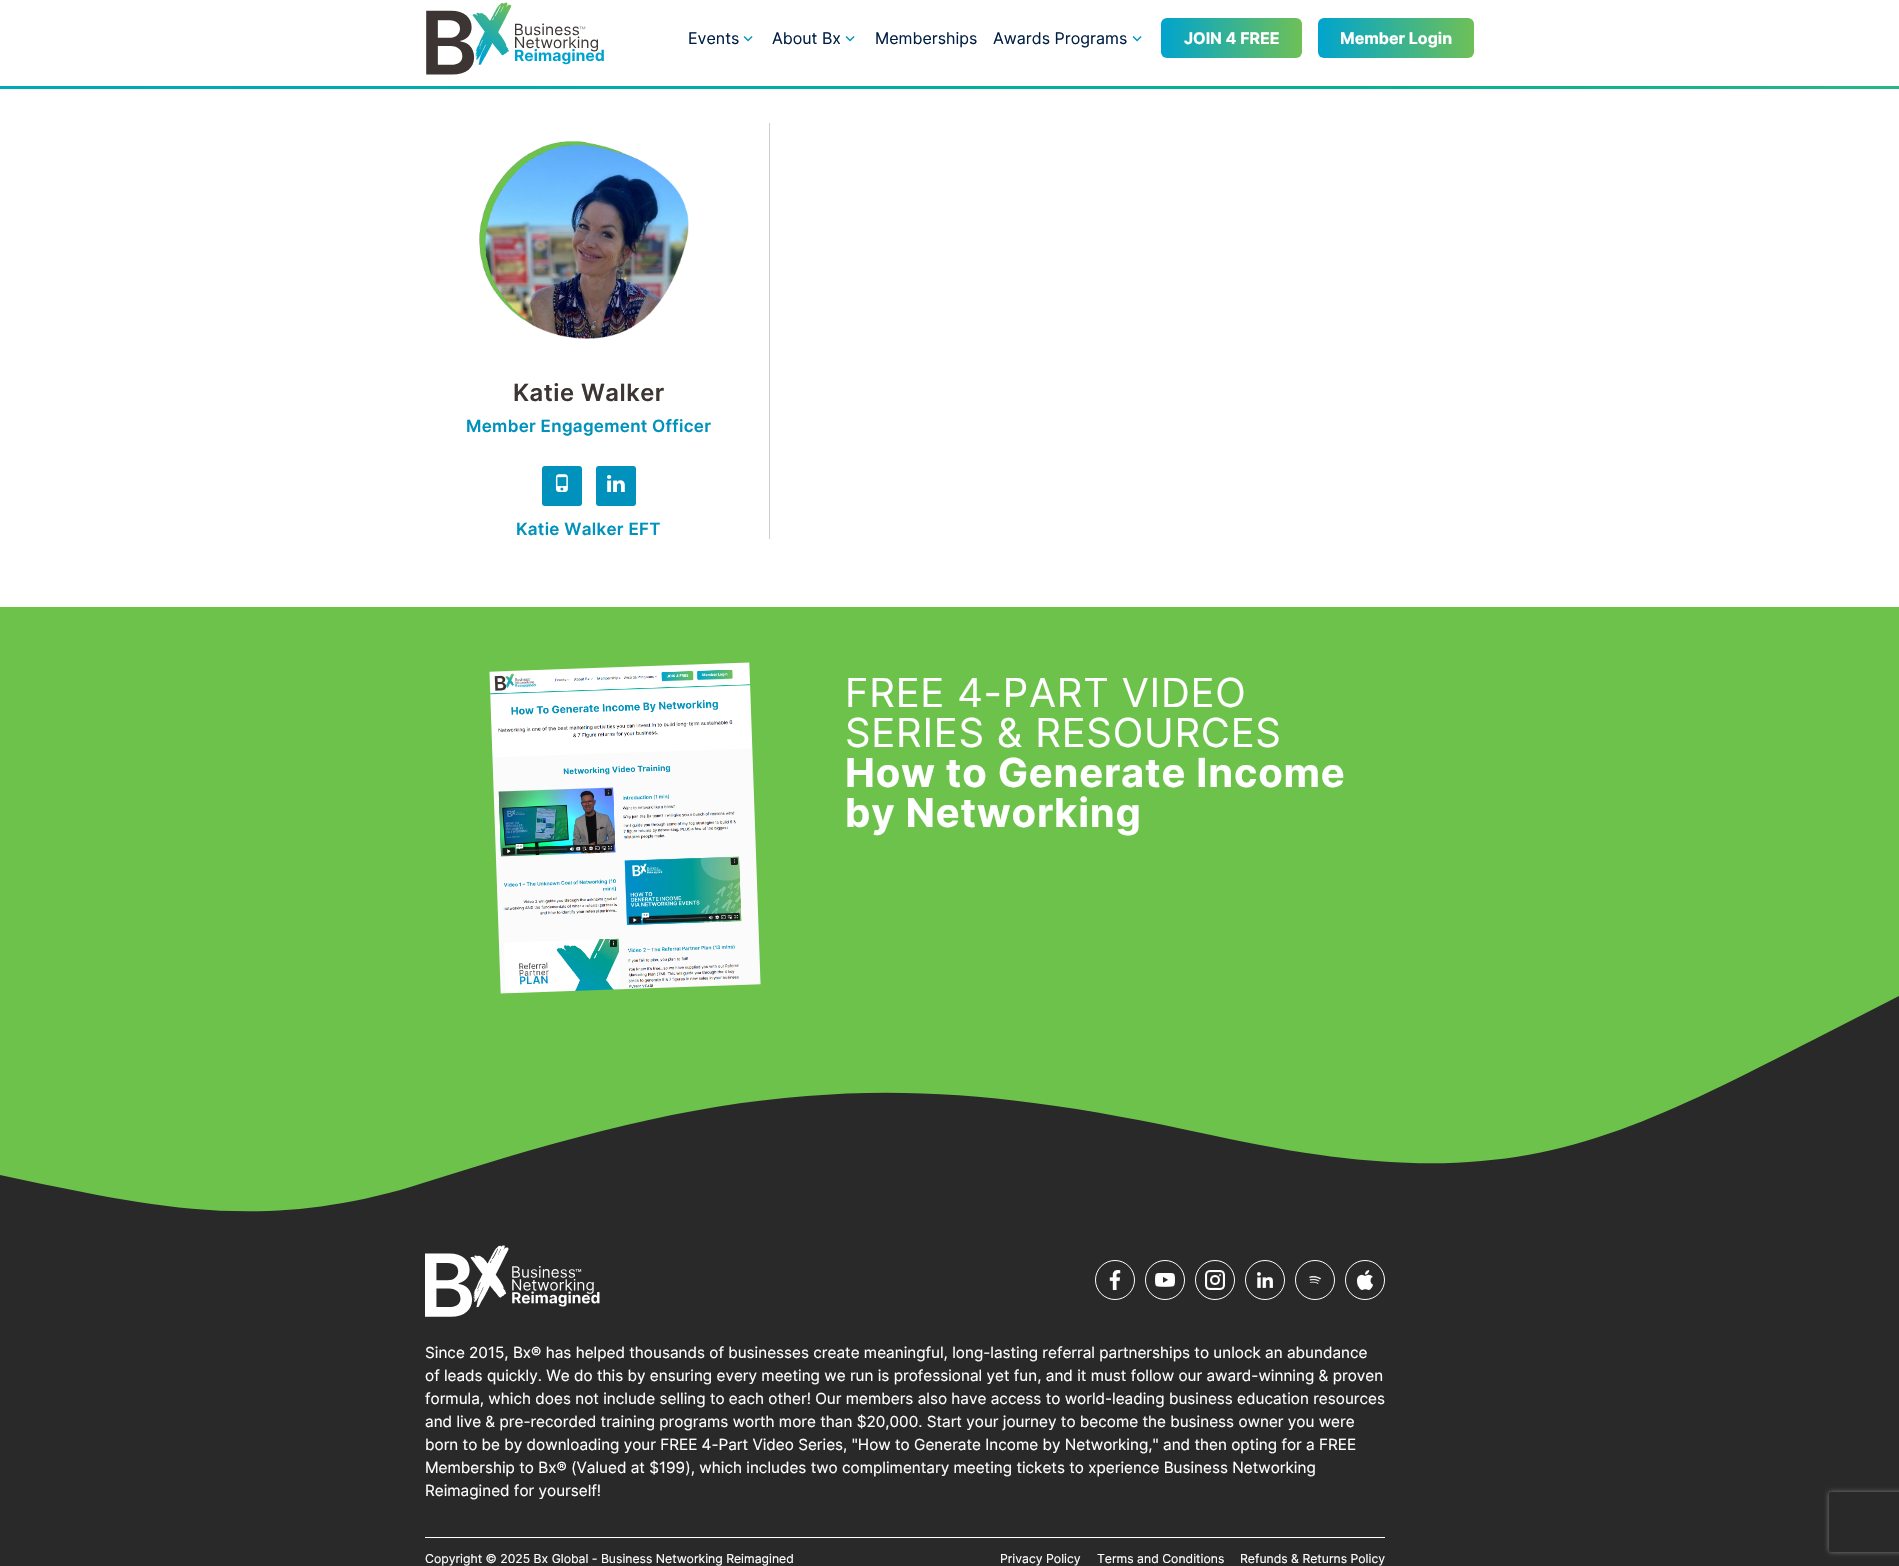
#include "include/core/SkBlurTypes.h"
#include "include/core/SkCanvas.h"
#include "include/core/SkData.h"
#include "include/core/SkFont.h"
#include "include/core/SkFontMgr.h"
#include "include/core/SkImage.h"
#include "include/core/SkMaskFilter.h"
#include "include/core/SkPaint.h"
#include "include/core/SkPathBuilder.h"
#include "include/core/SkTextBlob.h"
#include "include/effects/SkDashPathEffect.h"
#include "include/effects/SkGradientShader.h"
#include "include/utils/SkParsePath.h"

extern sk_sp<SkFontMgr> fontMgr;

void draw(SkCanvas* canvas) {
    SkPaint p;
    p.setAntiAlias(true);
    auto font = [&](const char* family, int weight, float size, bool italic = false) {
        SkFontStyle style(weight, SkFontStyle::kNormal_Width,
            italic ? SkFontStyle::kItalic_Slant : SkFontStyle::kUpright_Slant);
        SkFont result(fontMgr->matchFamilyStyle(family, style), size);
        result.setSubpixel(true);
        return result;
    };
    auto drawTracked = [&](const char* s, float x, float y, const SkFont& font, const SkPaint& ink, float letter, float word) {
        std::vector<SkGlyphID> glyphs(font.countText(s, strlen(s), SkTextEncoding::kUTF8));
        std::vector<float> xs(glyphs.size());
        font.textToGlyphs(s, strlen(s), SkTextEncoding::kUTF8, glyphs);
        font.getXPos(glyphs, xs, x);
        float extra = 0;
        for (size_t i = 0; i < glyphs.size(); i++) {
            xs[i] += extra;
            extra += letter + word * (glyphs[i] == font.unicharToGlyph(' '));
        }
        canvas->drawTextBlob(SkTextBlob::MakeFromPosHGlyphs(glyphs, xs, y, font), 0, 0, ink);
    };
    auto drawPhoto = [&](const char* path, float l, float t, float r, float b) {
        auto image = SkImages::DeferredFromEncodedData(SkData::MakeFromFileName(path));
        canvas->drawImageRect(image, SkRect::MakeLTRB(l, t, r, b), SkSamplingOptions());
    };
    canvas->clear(0xFFFFFFFF);
    drawPhoto("media/1.png", 0, 86, 1899, 89);
    drawPhoto("media/2.png", 426, 2, 604, 75);
    auto font1 = font("Inter", 400, 16);
    p.setColor(0xFF001F44);
    canvas->drawString("Events", 688, 44, font1, p);
    drawPhoto("media/3.png", 743, 36, 753, 42);
    canvas->drawString("About Bx", 772, 44, font1, p);
    drawPhoto("media/3.png", 845, 36, 855, 42);
    canvas->drawString("Memberships", 875, 44, font1, p);
    canvas->drawString("Awards Programs", 993, 44, font1, p);
    drawPhoto("media/3.png", 1132, 36, 1142, 42);
    {
        const SkColor colors[] = {0xFF00A4CE, 0xFF6EC057};
        const float stops[] = {0, 1};
        const SkPoint ends[] = {{1161, 38}, {1302, 38}};
        p.setShader(SkGradientShader::MakeLinear(ends, colors, stops, 2, SkTileMode::kClamp));
        p.setAlpha(255);
    }
    canvas->drawRoundRect(SkRect::MakeLTRB(1161, 18, 1302, 58), 6, 6, p);
    auto font2 = font("Inter", 700, 16);
    p.setShader(nullptr);
    p.setColor(0xFFFFFFFF);
    canvas->drawString("JOIN 4 FREE", 1184, 44, font2, p);
    {
        const SkColor colors[] = {0xFF00A4CE, 0xFF6EC057};
        const float stops[] = {0, 1};
        const SkPoint ends[] = {{1318, 38}, {1474, 38}};
        p.setShader(SkGradientShader::MakeLinear(ends, colors, stops, 2, SkTileMode::kClamp));
        p.setAlpha(255);
    }
    canvas->drawRoundRect(SkRect::MakeLTRB(1318, 18, 1474, 58), 6, 6, p);
    p.setShader(nullptr);
    p.setColor(0xFFFFFFFF);
    canvas->drawString("Member Login", 1340, 44, font2, p);
    p.setColor(0xFFCCCCCC);
    canvas->drawRect(SkRect::MakeLTRB(769, 123, 770, 539), p);
    drawPhoto("media/5.png", 485, 144, 689, 339);
    drawPhoto("media/4.png", 471, 123, 707, 360);
    auto font3 = font("Inter", 600, 23.75f);
    p.setColor(0xFF3C3533);
    drawTracked("Katie Walker", 513, 401, font3, p, 0.5f, 0);
    auto font4 = font("Inter", 600, 17);
    p.setColor(0xFF0092BC);
    drawTracked("Member Engagement Officer", 466, 432, font4, p, 0.3f, 0);
    canvas->drawRoundRect(SkRect::MakeLTRB(542, 466, 582, 506), 3, 3, p);
    drawPhoto("media/6.png", 555, 474, 568, 492);
    canvas->drawRoundRect(SkRect::MakeLTRB(596, 466, 636, 506), 3, 3, p);
    drawPhoto("media/7.png", 607, 475, 625, 492);
    drawTracked("Katie Walker EFT", 516, 535, font4, p, 0.3f, 0);
    p.setColor(0xFF6CC24A);
    canvas->drawRect(SkRect::MakeLTRB(0, 607, 1899, 996), p);
    drawPhoto("media/8.png", 489, 662, 761, 994);
    auto font5 = font("Inter", 400, 40);
    p.setColor(0xFFFFFFFF);
    drawTracked("FREE 4-PART VIDEO", 845, 707, font5, p, 0.8f, 0);
    drawTracked("SERIES & RESOURCES", 845, 747, font5, p, 0.8f, 0);
    auto font6 = font("Inter", 700, 40);
    drawTracked("How to Generate Income", 845, 787, font6, p, 0.8f, 0);
    drawTracked("by Networking", 845, 827, font6, p, 0.8f, 0);
    p.setColor(0xFF292929);
    canvas->drawRect(SkRect::MakeLTRB(0, 996, 1899, 1566), p);
    p.setColor(0xFF6CC24A);
    canvas->drawPath(SkPathBuilder().moveTo(0, 996).lineTo(0, 1175).lineTo(28, 1181).cubicTo(158, 1208, 271, 1232, 423, 1183).cubicTo(571, 1136, 687, 1105, 807, 1096).cubicTo(924, 1086, 1045, 1098, 1211, 1135).cubicTo(1502, 1199, 1600, 1149, 1815, 1039).lineTo(1899, 996).close().detach(), p);
    drawPhoto("media/9.png", 425, 1245, 600, 1317);
    p.setStyle(SkPaint::kStroke_Style);
    p.setStrokeWidth(1);
    p.setColor(0xFFFFFFFF);
    canvas->drawCircle(1115, 1280, 19.5f, p);
    drawPhoto("media/10.png", 1109, 1270, 1121, 1290);
    canvas->drawCircle(1165, 1280, 19.5f, p);
    drawPhoto("media/11.png", 1155, 1273, 1175, 1287);
    canvas->drawCircle(1215, 1280, 19.5f, p);
    drawPhoto("media/12.png", 1205, 1270, 1225, 1290);
    canvas->drawCircle(1265, 1280, 19.5f, p);
    drawPhoto("media/13.png", 1257, 1272, 1273, 1288);
    canvas->drawCircle(1315, 1280, 19.5f, p);
    drawPhoto("media/14.png", 1309, 1275, 1321, 1284);
    canvas->drawCircle(1365, 1280, 19.5f, p);
    drawPhoto("media/15.png", 1356, 1270, 1373, 1290);
    auto font7 = font("Inter", 400, 15.3f);
    p.setStyle(SkPaint::kFill_Style);
    {
        const struct { const char* s; float x, y; } items[] = {
            {"Since 2015, Bx® has helped thousands of businesses create meaningful, long-lasting referral partnerships to unlock an abundance", 425, 1358},
            {"of leads quickly. We do this by ensuring every meeting we run is professional yet fun, and it must follow our award-winning & proven", 425, 1381},
            {"formula, which does not include selling to each other! Our members also have access to world-leading business education resources", 425, 1404},
            {"and live & pre-recorded training programs worth more than $20,000. Start your journey to become the business owner you were", 425, 1427},
            {"born to be by downloading your FREE 4-Part Video Series, \"How to Generate Income by Networking,\" and then opting for a FREE", 425, 1450},
            {"Membership to Bx® (Valued at $199), which includes two complimentary meeting tickets to xperience Business Networking", 425, 1473},
            {"Reimagined for yourself!", 425, 1496},
        };
        for (auto [s, x, y] : items) {
            canvas->drawString(s, x, y, font7, p);
        }
    }
    canvas->drawRect(SkRect::MakeLTRB(425, 1537, 1385, 1538), p);
    auto font8 = font("Inter", 400, 12.25f);
    {
        const struct { const char* s; float x, y; } items[] = {
            {"Copyright © 2025 Bx Global - Business Networking Reimagined", 425, 1563},
            {"Privacy Policy", 1000, 1563},
            {"Terms and Conditions", 1097, 1563},
            {"Refunds & Returns Policy", 1240, 1563},
        };
        for (auto [s, x, y] : items) {
            canvas->drawString(s, x, y, font8, p);
        }
    }
    canvas->save();
    canvas->clipPath(SkPathBuilder(SkPathFillType::kEvenOdd).moveTo(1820, 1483).lineTo(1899, 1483).lineTo(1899, 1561).lineTo(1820, 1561).close().moveTo(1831, 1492).lineTo(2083, 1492).cubicTo(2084, 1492, 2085, 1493, 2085, 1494).lineTo(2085, 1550).cubicTo(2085, 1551, 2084, 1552, 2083, 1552).lineTo(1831, 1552).cubicTo(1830, 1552, 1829, 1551, 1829, 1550).lineTo(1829, 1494).cubicTo(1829, 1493, 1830, 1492, 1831, 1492).close().detach(), true);
    p.setColor(0xFF808080);
    p.setMaskFilter(SkMaskFilter::MakeBlur(kNormal_SkBlurStyle, 2.5f));
    canvas->drawRoundRect(SkRect::MakeLTRB(1829, 1492, 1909, 1552), 2, 2, p);
    p.setMaskFilter(nullptr);
    canvas->restore();
}
